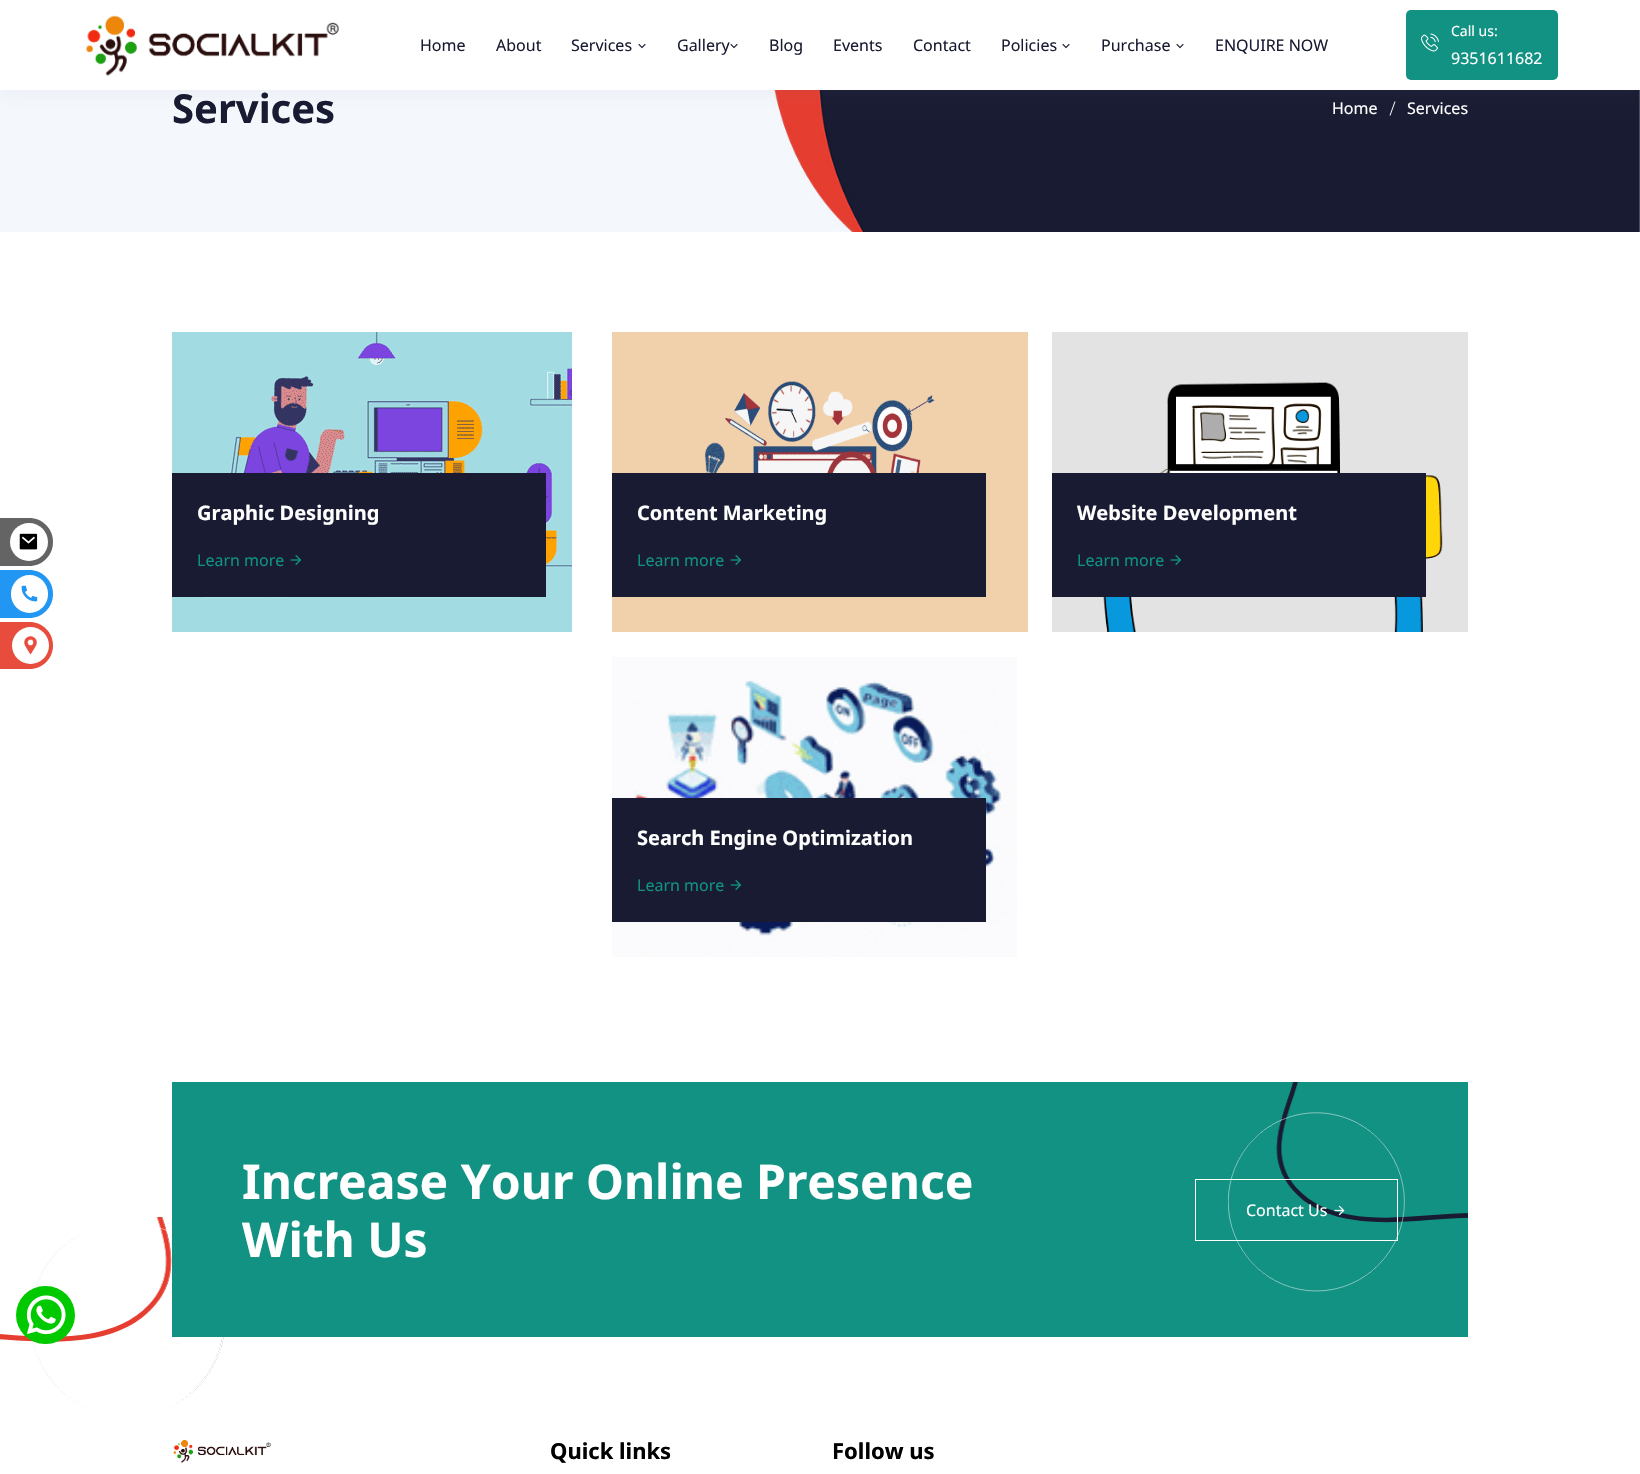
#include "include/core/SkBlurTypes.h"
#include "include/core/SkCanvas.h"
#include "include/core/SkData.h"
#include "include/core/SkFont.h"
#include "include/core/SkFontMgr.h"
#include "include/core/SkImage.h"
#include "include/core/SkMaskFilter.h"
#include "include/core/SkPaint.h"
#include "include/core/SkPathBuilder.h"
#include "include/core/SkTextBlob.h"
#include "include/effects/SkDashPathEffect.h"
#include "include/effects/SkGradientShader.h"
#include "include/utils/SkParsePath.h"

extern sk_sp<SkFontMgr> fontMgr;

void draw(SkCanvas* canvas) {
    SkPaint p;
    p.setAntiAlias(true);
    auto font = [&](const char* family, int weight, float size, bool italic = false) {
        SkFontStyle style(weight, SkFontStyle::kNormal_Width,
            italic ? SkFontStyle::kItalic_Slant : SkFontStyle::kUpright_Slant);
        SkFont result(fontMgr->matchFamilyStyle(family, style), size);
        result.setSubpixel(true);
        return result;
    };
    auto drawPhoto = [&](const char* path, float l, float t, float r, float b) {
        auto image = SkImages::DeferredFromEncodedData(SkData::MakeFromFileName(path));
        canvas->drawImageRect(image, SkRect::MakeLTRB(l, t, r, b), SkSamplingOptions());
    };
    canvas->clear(0xFFFFFFFF);
    drawPhoto("media/4.png", 0, 90, 1640, 232);
    p.setColor(0xFFFFFFFF);
    canvas->drawPath(SkPathBuilder().moveTo(1394.5f, 101.5f).lineTo(1395.5f, 101.5f).lineTo(1390.5f, 115.5f).lineTo(1389.5f, 115.5f).close().detach(), p);
    p.setColor(0x1A6C7686);
    p.setMaskFilter(SkMaskFilter::MakeBlur(kNormal_SkBlurStyle, 10));
    canvas->drawRect(SkRect::MakeLTRB(0, 0, 1640, 90), p);
    p.setMaskFilter(nullptr);
    p.setColor(0xFFFFFFFF);
    canvas->drawRect(SkRect::MakeLTRB(0, 0, 1640, 90), p);
    drawPhoto("media/1.png", 85, 15, 339, 76);
    auto font1 = font("Noto Sans", 400, 16);
    p.setColor(0xFF181B31);
    {
        const struct { const char* s; float x, y; } items[] = {
            {"Home", 420, 51},
            {"About", 496, 51},
            {"Services", 571, 51},
        };
        for (auto [s, x, y] : items) {
            canvas->drawString(s, x, y, font1, p);
        }
    }
    drawPhoto("media/2.png", 638, 43, 646, 49);
    canvas->drawString("Gallery", 677, 51, font1, p);
    drawPhoto("media/2.png", 730, 43, 738, 49);
    {
        const struct { const char* s; float x, y; } items[] = {
            {"Blog", 769, 51},
            {"Events", 833, 51},
            {"Contact", 913, 51},
            {"Policies", 1001, 51},
        };
        for (auto [s, x, y] : items) {
            canvas->drawString(s, x, y, font1, p);
        }
    }
    drawPhoto("media/2.png", 1062, 43, 1070, 49);
    canvas->drawString("Purchase", 1101, 51, font1, p);
    drawPhoto("media/2.png", 1176, 43, 1184, 49);
    canvas->drawString("ENQUIRE NOW", 1215, 51, font1, p);
    p.setColor(0xFF119283);
    canvas->drawRoundRect(SkRect::MakeLTRB(1406, 10, 1558, 80), 5, 5, p);
    auto font2 = font("Noto Sans", 400, 14);
    p.setColor(0xFFFFFFFF);
    canvas->drawString("Call us:", 1451, 36, font2, p);
    drawPhoto("media/3.png", 1421, 33, 1439, 52);
    canvas->drawString("9351611682", 1451, 64, font1, p);
    auto font3 = font("Noto Sans", 700, 40);
    p.setColor(0xFF181B31);
    canvas->drawString("Services", 172, 123, font3, p);
    p.setColor(0xFFFFFFFF);
    canvas->drawString("Home", 1332, 114, font1, p);
    canvas->drawString("Services", 1407, 114, font1, p);
    drawPhoto("media/5.png", 172, 332, 572, 632);
    p.setColor(0xFF181B31);
    canvas->drawRect(SkRect::MakeLTRB(172, 473, 546, 597), p);
    auto font4 = font("Noto Sans", 700, 20);
    p.setColor(0xFFFFFFFF);
    canvas->drawString("Graphic Designing", 197, 520, font4, p);
    p.setColor(0xFF119283);
    canvas->drawString("Learn more", 197, 566, font1, p);
    drawPhoto("media/6.png", 290, 554, 302, 566);
    drawPhoto("media/7.png", 612, 332, 1028, 632);
    p.setColor(0xFF181B31);
    canvas->drawRect(SkRect::MakeLTRB(612, 473, 986, 597), p);
    p.setColor(0xFFFFFFFF);
    canvas->drawString("Content Marketing", 637, 520, font4, p);
    p.setColor(0xFF119283);
    canvas->drawString("Learn more", 637, 566, font1, p);
    drawPhoto("media/6.png", 730, 554, 742, 566);
    drawPhoto("media/8.png", 1052, 332, 1468, 632);
    p.setColor(0xFF181B31);
    canvas->drawRect(SkRect::MakeLTRB(1052, 473, 1426, 597), p);
    p.setColor(0xFFFFFFFF);
    canvas->drawString("Website Development", 1077, 520, font4, p);
    p.setColor(0xFF119283);
    canvas->drawString("Learn more", 1077, 566, font1, p);
    drawPhoto("media/6.png", 1170, 554, 1182, 566);
    drawPhoto("media/9.png", 612, 657, 1017, 957);
    p.setColor(0xFF181B31);
    canvas->drawRect(SkRect::MakeLTRB(612, 798, 986, 922), p);
    p.setColor(0xFFFFFFFF);
    canvas->drawString("Search Engine Optimization", 637, 845, font4, p);
    p.setColor(0xFF119283);
    canvas->drawString("Learn more", 637, 891, font1, p);
    drawPhoto("media/6.png", 730, 879, 742, 891);
    drawPhoto("media/15.png", 0, 1217, 224, 1416);
    canvas->drawRect(SkRect::MakeLTRB(172, 1082, 1468, 1337), p);
    auto font5 = font("Noto Sans", 700, 48);
    p.setColor(0xFFFFFFFF);
    canvas->drawString("Increase Your Online Presence", 242, 1199, font5, p);
    canvas->drawString("With Us", 242, 1257, font5, p);
    drawPhoto("media/11.png", 1228, 1082, 1468, 1292);
    p.setStyle(SkPaint::kStroke_Style);
    p.setStrokeWidth(1);
    canvas->drawRect(SkRect::MakeLTRB(1195.5f, 1179.5f, 1397.5f, 1240.5f), p);
    p.setStyle(SkPaint::kFill_Style);
    canvas->drawString("Contact Us", 1246, 1216, font1, p);
    drawPhoto("media/10.png", 1334, 1205, 1345, 1216);
    p.setColor(0xFF646464);
    canvas->drawPath(SkPathBuilder().moveTo(-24, 518).lineTo(29, 518).cubicTo(42.5f, 518, 53, 528.5f, 53, 542).cubicTo(53, 555.5f, 42.5f, 566, 29, 566).lineTo(-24, 566).close().detach(), p);
    p.setColor(0xFFFFFFFF);
    canvas->drawCircle(29, 542, 19, p);
    drawPhoto("media/12.png", 19, 533, 38, 550);
    p.setColor(0xFF2196F3);
    canvas->drawPath(SkPathBuilder().moveTo(-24, 570).lineTo(29, 570).cubicTo(42.5f, 570, 53, 580.5f, 53, 594).cubicTo(53, 607.5f, 42.5f, 618, 29, 618).lineTo(-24, 618).close().detach(), p);
    p.setColor(0xFFFFFFFF);
    canvas->drawRoundRect(SkRect::MakeLTRB(11, 575, 48, 613), 18.5f, 18.5f, p);
    drawPhoto("media/13.png", 21, 585, 38, 602);
    p.setColor(0xFFE74C3C);
    canvas->drawPath(SkPathBuilder().moveTo(-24, 622).lineTo(29.5f, 622).cubicTo(42.5f, 622, 53, 632.5f, 53, 645.5f).cubicTo(53, 658.5f, 42.5f, 669, 29.5f, 669).lineTo(-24, 669).close().detach(), p);
    p.setColor(0xFFFFFFFF);
    canvas->drawCircle(30.5f, 645.5f, 18.5f, p);
    drawPhoto("media/14.png", 24, 636, 37, 655);
    p.setColor(0xFF00C900);
    canvas->drawRoundRect(SkRect::MakeLTRB(16, 1286, 75, 1344), 29, 29, p);
    drawPhoto("media/16.png", 26, 1295, 66, 1335);
    drawPhoto("media/17.png", 173, 1439, 271, 1463);
    auto font6 = font("Noto Sans", 700, 22);
    p.setColor(0xFF000000);
    canvas->drawString("Quick links", 550, 1459, font6, p);
    canvas->drawString("Follow us", 832, 1459, font6, p);
}
